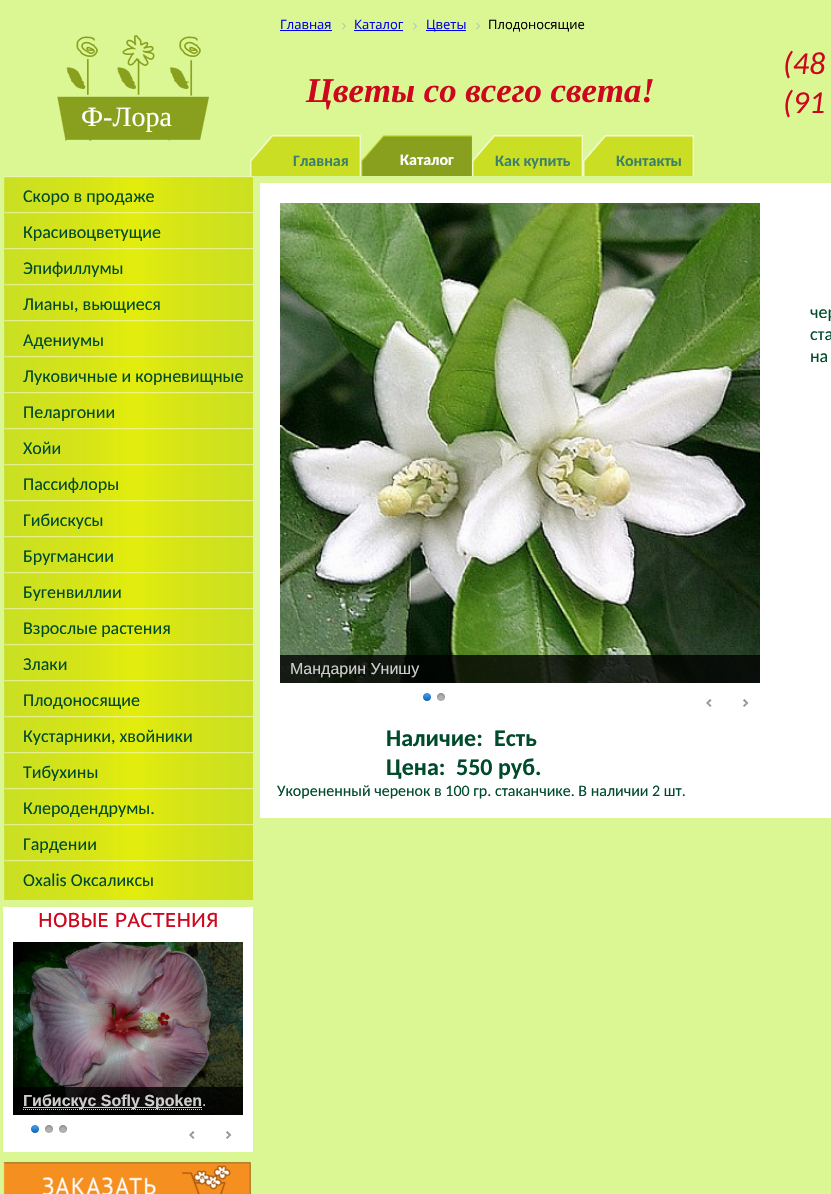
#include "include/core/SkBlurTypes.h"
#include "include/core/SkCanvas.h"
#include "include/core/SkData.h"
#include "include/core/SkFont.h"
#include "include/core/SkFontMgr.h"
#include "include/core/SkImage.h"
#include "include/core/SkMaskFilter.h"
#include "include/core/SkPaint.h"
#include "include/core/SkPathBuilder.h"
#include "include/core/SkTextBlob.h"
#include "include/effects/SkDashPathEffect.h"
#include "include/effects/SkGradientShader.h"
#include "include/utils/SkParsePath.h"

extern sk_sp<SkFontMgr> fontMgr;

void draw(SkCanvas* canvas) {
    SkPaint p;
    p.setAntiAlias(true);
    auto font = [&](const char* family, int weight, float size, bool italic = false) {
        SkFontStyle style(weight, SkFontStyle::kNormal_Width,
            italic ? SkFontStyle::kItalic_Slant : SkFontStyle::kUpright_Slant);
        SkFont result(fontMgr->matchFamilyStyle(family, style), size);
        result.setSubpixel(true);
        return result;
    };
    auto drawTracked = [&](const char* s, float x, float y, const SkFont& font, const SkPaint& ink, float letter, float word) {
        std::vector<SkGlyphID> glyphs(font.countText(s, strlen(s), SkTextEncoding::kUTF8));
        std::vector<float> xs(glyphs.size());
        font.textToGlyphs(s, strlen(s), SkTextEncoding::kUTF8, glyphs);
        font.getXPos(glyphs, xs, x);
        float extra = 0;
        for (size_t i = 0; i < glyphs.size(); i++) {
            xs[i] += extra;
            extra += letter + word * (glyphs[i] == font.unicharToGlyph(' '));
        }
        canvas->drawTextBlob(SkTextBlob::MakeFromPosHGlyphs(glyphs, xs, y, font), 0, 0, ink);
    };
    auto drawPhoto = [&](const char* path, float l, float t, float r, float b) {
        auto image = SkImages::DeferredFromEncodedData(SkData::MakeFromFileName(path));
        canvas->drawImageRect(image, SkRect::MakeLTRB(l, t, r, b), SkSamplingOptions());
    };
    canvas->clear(0xFFDBF794);
    auto font1 = font("Open Sans", 400, 13);
    p.setColor(0xFF0000EE);
    canvas->drawString("Главная", 280, 29, font1, p);
    canvas->drawRect(SkRect::MakeLTRB(280, 30, 332, 31), p);
    drawPhoto("media/1.png", 342, 23, 346, 30);
    canvas->drawString("Каталог", 354, 29, font1, p);
    canvas->drawRect(SkRect::MakeLTRB(354, 30, 403, 31), p);
    drawPhoto("media/1.png", 413, 23, 417, 30);
    canvas->drawRect(SkRect::MakeLTRB(426, 30, 466, 31), p);
    canvas->drawString("Цветы", 426, 29, font1, p);
    drawPhoto("media/1.png", 476, 23, 480, 30);
    p.setColor(0xFF000000);
    canvas->drawString("Плодоносящие", 488, 29, font1, p);
    auto font2 = font("Liberation Serif", 700, 34.75f, true);
    p.setColor(0xFFCC071E);
    canvas->drawString("Цветы со всего света!", 306, 102, font2, p);
    auto font3 = font("Carlito", 400, 32, true);
    canvas->drawString("(48", 783, 74, font3, p);
    canvas->drawString("(91", 783, 113, font3, p);
    drawPhoto("media/2.png", 57, 35, 209, 141);
    auto font4 = font("Liberation Serif", 400, 28);
    p.setColor(0xFFFFFFFF);
    canvas->drawString("Ф-Лора", 81, 126, font4, p);
    drawPhoto("media/3.png", 250, 135, 361, 176);
    auto font5 = font("Carlito", 700, 16);
    p.setColor(0xFF3C806B);
    canvas->drawString("Главная", 293, 166, font5, p);
    drawPhoto("media/3.png", 361, 135, 472, 176);
    drawPhoto("media/4.png", 361, 135, 472, 176);
    p.setColor(0xFFFFFFFF);
    canvas->drawString("Каталог", 400, 165, font5, p);
    drawPhoto("media/3.png", 472, 135, 583, 176);
    p.setColor(0xFF3C806B);
    canvas->drawString("Как купить", 495, 166, font5, p);
    drawPhoto("media/3.png", 583, 135, 694, 176);
    canvas->drawString("Контакты", 616, 166, font5, p);
    drawPhoto("media/5.png", 4, 176, 253, 216);
    auto font6 = font("Carlito", 400, 18);
    p.setColor(0xFF004B2C);
    canvas->drawString("Скоро в продаже", 23, 202, font6, p);
    drawPhoto("media/6.png", 4, 212, 253, 252);
    canvas->drawString("Красивоцветущие", 23, 238, font6, p);
    drawPhoto("media/6.png", 4, 248, 253, 288);
    canvas->drawString("Эпифиллумы", 23, 274, font6, p);
    drawPhoto("media/6.png", 4, 284, 253, 324);
    canvas->drawString("Лианы, вьющиеся", 23, 310, font6, p);
    drawPhoto("media/6.png", 4, 320, 253, 360);
    canvas->drawString("Адениумы", 23, 346, font6, p);
    drawPhoto("media/6.png", 4, 356, 253, 396);
    canvas->drawString("Луковичные и корневищные", 23, 382, font6, p);
    drawPhoto("media/6.png", 4, 392, 253, 432);
    canvas->drawString("Пеларгонии", 23, 418, font6, p);
    drawPhoto("media/6.png", 4, 428, 253, 468);
    canvas->drawString("Хойи", 23, 454, font6, p);
    drawPhoto("media/6.png", 4, 464, 253, 504);
    canvas->drawString("Пассифлоры", 23, 490, font6, p);
    drawPhoto("media/6.png", 4, 500, 253, 540);
    canvas->drawString("Гибискусы", 23, 526, font6, p);
    drawPhoto("media/6.png", 4, 536, 253, 576);
    canvas->drawString("Бругмансии", 23, 562, font6, p);
    drawPhoto("media/6.png", 4, 572, 253, 612);
    canvas->drawString("Бугенвиллии", 23, 598, font6, p);
    drawPhoto("media/6.png", 4, 608, 253, 648);
    canvas->drawString("Взрослые растения", 23, 634, font6, p);
    drawPhoto("media/6.png", 4, 644, 253, 684);
    canvas->drawString("Злаки", 23, 670, font6, p);
    drawPhoto("media/6.png", 4, 680, 253, 720);
    canvas->drawString("Плодоносящие", 23, 706, font6, p);
    drawPhoto("media/6.png", 4, 716, 253, 756);
    canvas->drawString("Кустарники, хвойники", 23, 742, font6, p);
    drawPhoto("media/6.png", 4, 752, 253, 792);
    canvas->drawString("Тибухины", 23, 778, font6, p);
    drawPhoto("media/6.png", 4, 788, 253, 828);
    canvas->drawString("Клеродендрумы.", 23, 814, font6, p);
    drawPhoto("media/6.png", 4, 824, 253, 864);
    canvas->drawString("Гардении", 23, 850, font6, p);
    drawPhoto("media/6.png", 4, 860, 253, 900);
    canvas->drawString("Oxalis Оксаликсы", 23, 886, font6, p);
    p.setColor(0xFFFFFFFF);
    canvas->drawRect(SkRect::MakeLTRB(3, 907, 253, 1152), p);
    auto font7 = font("PT Sans Caption", 400, 20);
    p.setColor(0xFFCC071E);
    canvas->drawString("НОВЫЕ РАСТЕНИЯ", 38, 927, font7, p);
    drawPhoto("media/7.png", 13, 942, 243, 1115);
    p.setColor(0xCC000000);
    canvas->drawRect(SkRect::MakeLTRB(13, 1087, 243, 1115), p);
    p.setStyle(SkPaint::kStroke_Style);
    p.setStrokeWidth(1);
    p.setColor(0xCCFFFFFF);
    p.setPathEffect(SkDashPathEffect::Make({{1, 1}}, 0));
    canvas->drawPath(SkPathBuilder().moveTo(23, 1109.5f).lineTo(202, 1109.5f).detach(), p);
    p.setPathEffect(nullptr);
    p.setStyle(SkPaint::kFill_Style);
    canvas->drawRect(SkRect::MakeLTRB(23, 1107, 202, 1108), p);
    auto font8 = font("Liberation Sans", 700, 16);
    p.setColor(0xFFCECECE);
    canvas->drawString("Гибискус Sofly Spoken", 23, 1106, font8, p);
    auto font9 = font("Liberation Sans", 400, 16);
    canvas->drawString(".", 202, 1106, font9, p);
    drawPhoto("media/8.png", 189, 1131, 195, 1139);
    drawPhoto("media/9.png", 225, 1131, 232, 1139);
    drawPhoto("media/10.png", 31, 1125, 39, 1133);
    drawPhoto("media/11.png", 45, 1125, 53, 1133);
    drawPhoto("media/11.png", 59, 1125, 67, 1133);
    drawPhoto("media/12.png", 3, 1162, 251, 1194);
    p.setColor(0xFFFFFFFF);
    canvas->drawRect(SkRect::MakeLTRB(260, 183, 831, 818), p);
    p.setColor(0xFF004B2C);
    drawTracked("чер", 810, 318, font6, p, 0, 12);
    drawTracked("ста", 810, 340, font6, p, 0, 64);
    canvas->drawString("на", 810, 362, font6, p);
    drawPhoto("media/13.png", 280, 203, 760, 683);
    p.setColor(0xCC000000);
    canvas->drawRect(SkRect::MakeLTRB(280, 655, 760, 683), p);
    p.setColor(0xFFCECECE);
    canvas->drawString("Мандарин Унишу", 290, 674, font9, p);
    drawPhoto("media/8.png", 706, 699, 712, 707);
    drawPhoto("media/9.png", 742, 699, 749, 707);
    drawPhoto("media/10.png", 423, 693, 431, 701);
    drawPhoto("media/11.png", 437, 693, 445, 701);
    auto font10 = font("Carlito", 700, 24);
    p.setColor(0xFF004B2C);
    {
        const struct { const char* s; float x, y; } items[] = {
            {"Наличие:", 386, 746},
            {"Есть", 494, 746},
            {"Цена:", 386, 775},
            {"550 руб.", 456, 775},
        };
        for (auto [s, x, y] : items) {
            canvas->drawString(s, x, y, font10, p);
        }
    }
    auto font11 = font("Carlito", 400, 16);
    canvas->drawString("Укорененный черенок в 100 гр. стаканчике. В наличии 2 шт.", 277, 796, font11, p);
}
